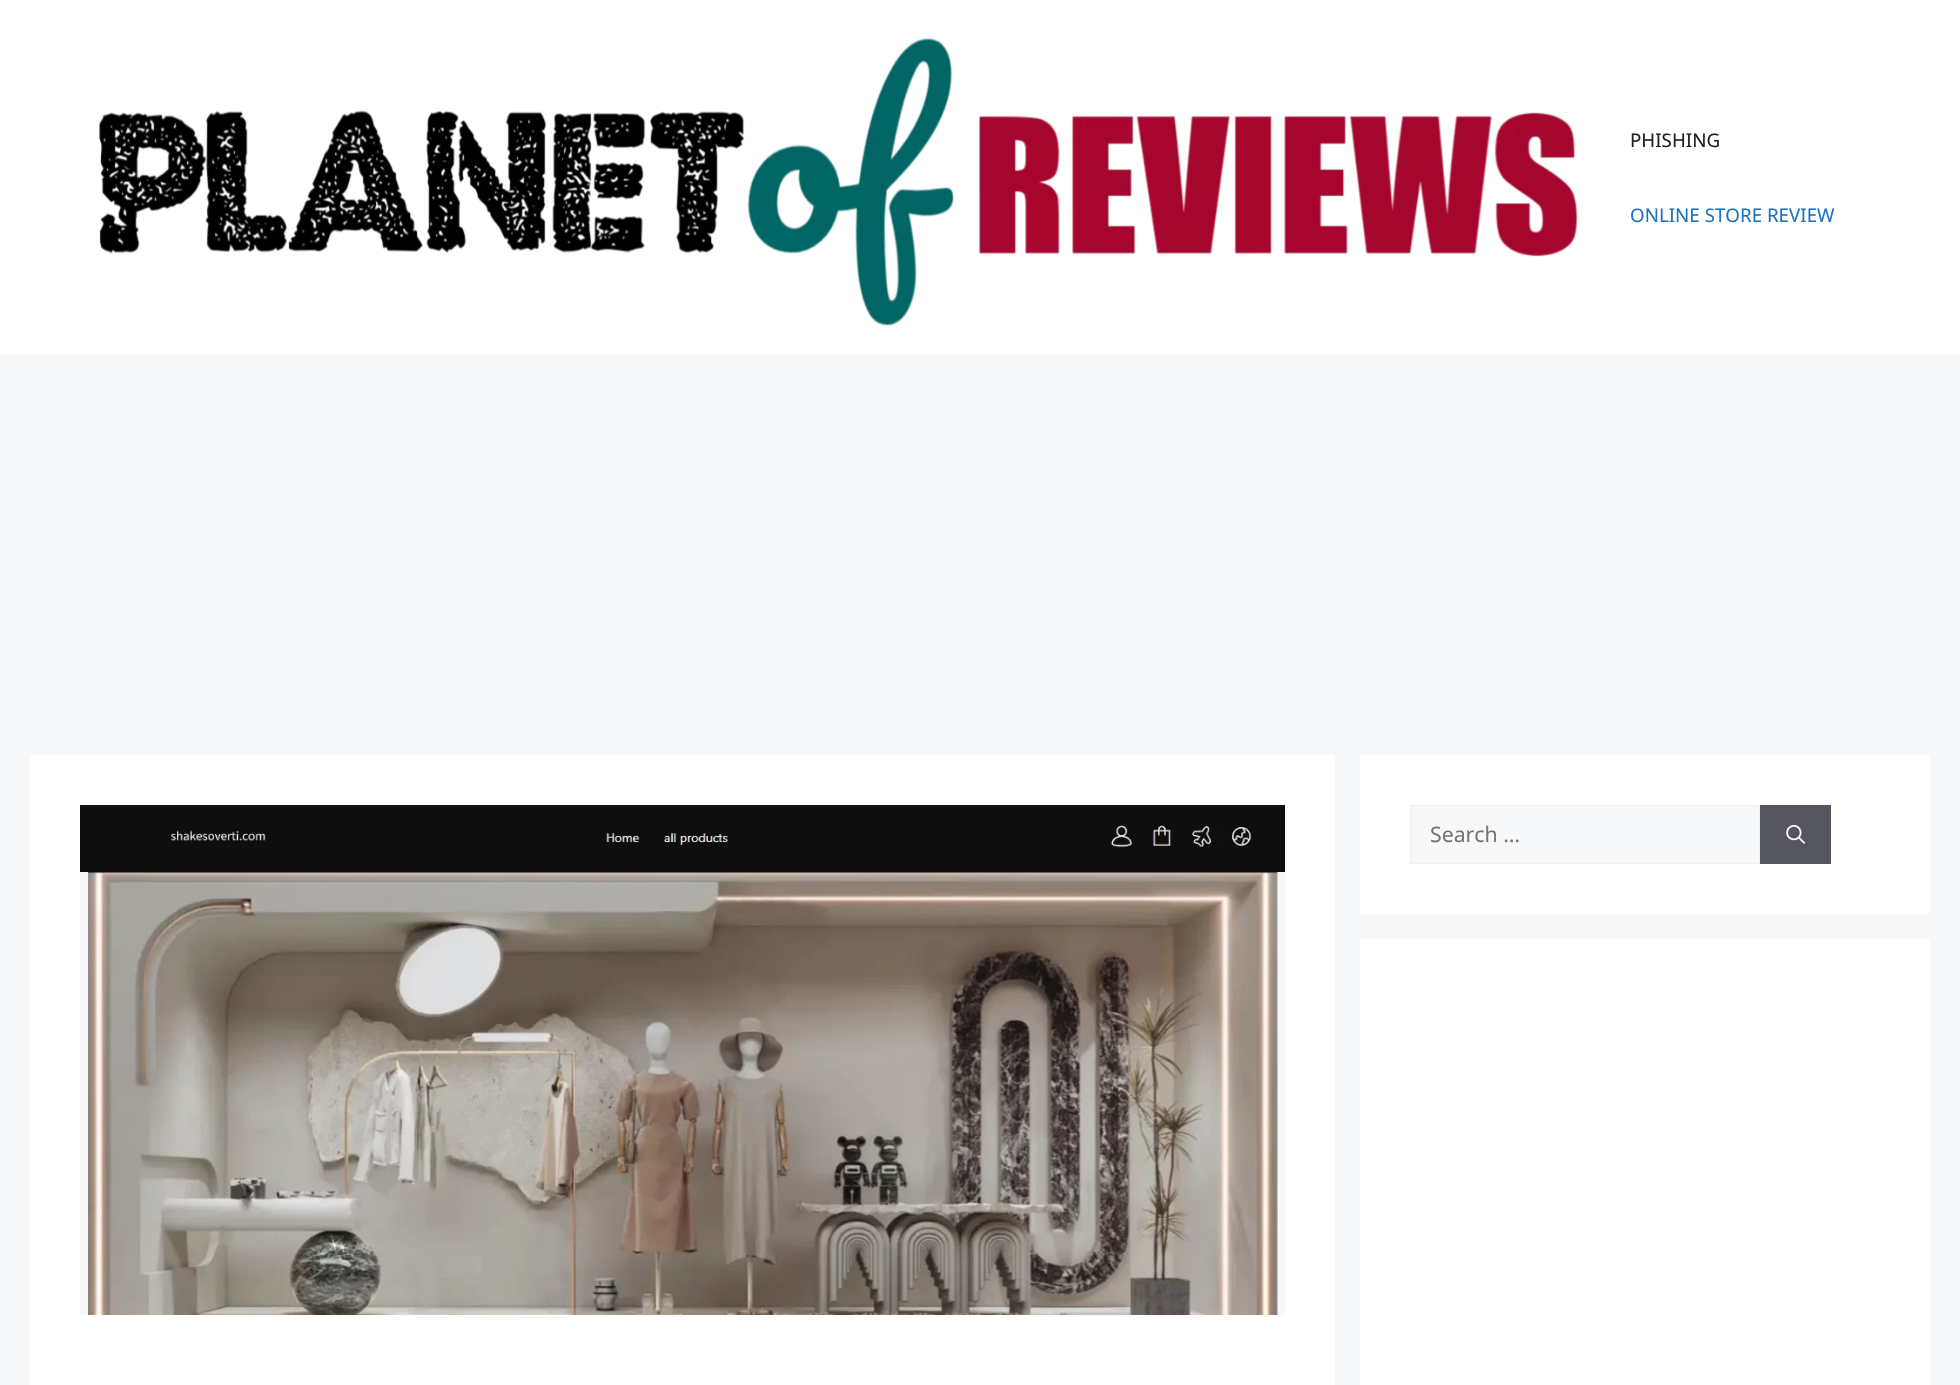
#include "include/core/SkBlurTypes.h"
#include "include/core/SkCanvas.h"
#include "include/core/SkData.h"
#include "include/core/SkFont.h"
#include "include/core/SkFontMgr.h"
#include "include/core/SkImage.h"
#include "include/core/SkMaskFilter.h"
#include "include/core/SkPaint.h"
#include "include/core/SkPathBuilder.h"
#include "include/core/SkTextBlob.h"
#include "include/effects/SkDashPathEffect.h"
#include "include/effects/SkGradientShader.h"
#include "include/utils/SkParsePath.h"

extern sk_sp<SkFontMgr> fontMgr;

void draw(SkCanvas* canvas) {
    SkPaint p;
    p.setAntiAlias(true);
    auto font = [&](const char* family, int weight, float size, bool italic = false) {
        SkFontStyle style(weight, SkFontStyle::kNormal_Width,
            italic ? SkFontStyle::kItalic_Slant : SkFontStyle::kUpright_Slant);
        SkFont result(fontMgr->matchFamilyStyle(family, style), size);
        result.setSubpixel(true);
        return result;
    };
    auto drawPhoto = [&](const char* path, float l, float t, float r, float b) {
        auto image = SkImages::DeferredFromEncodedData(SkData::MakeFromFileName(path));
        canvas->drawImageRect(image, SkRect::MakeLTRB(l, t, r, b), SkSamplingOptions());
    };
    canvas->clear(0xFFF7F8F9);
    p.setColor(0xFFFFFFFF);
    canvas->drawRect(SkRect::MakeLTRB(0, 0, 1960, 355), p);
    drawPhoto("media/1.png", 99, 38, 1578, 326);
    auto font1 = font("Noto Sans", 400, 18.75f);
    p.setColor(0xFF222222);
    canvas->drawString("PHISHING", 1630, 147, font1, p);
    p.setColor(0xFF1E73BE);
    canvas->drawString("ONLINE STORE REVIEW", 1630, 222, font1, p);
    p.setColor(0xFFFFFFFF);
    canvas->drawRect(SkRect::MakeLTRB(30, 755, 1335, 1385), p);
    drawPhoto("media/2.png", 80, 805, 1285, 1315);
    canvas->drawRect(SkRect::MakeLTRB(1360, 755, 1930, 914), p);
    p.setColor(0xFFF7F8F9);
    canvas->drawRect(SkRect::MakeLTRB(1410.5f, 805.5f, 1759.5f, 863.5f), p);
    p.setStyle(SkPaint::kStroke_Style);
    p.setStrokeWidth(1);
    p.setColor(0xFFF0F0F0);
    canvas->drawRect(SkRect::MakeLTRB(1410.5f, 805.5f, 1759.5f, 863.5f), p);
    auto font2 = font("Noto Sans", 400, 21.25f);
    p.setStyle(SkPaint::kFill_Style);
    p.setColor(0xFF757575);
    canvas->drawString("Search …", 1430, 842, font2, p);
    p.setColor(0xFF55555E);
    canvas->drawRect(SkRect::MakeLTRB(1760, 805, 1831, 864), p);
    drawPhoto("media/3.png", 1786, 825, 1805, 844);
    p.setColor(0xFFFFFFFF);
    canvas->drawRect(SkRect::MakeLTRB(1360, 939, 1930, 1385), p);
}
